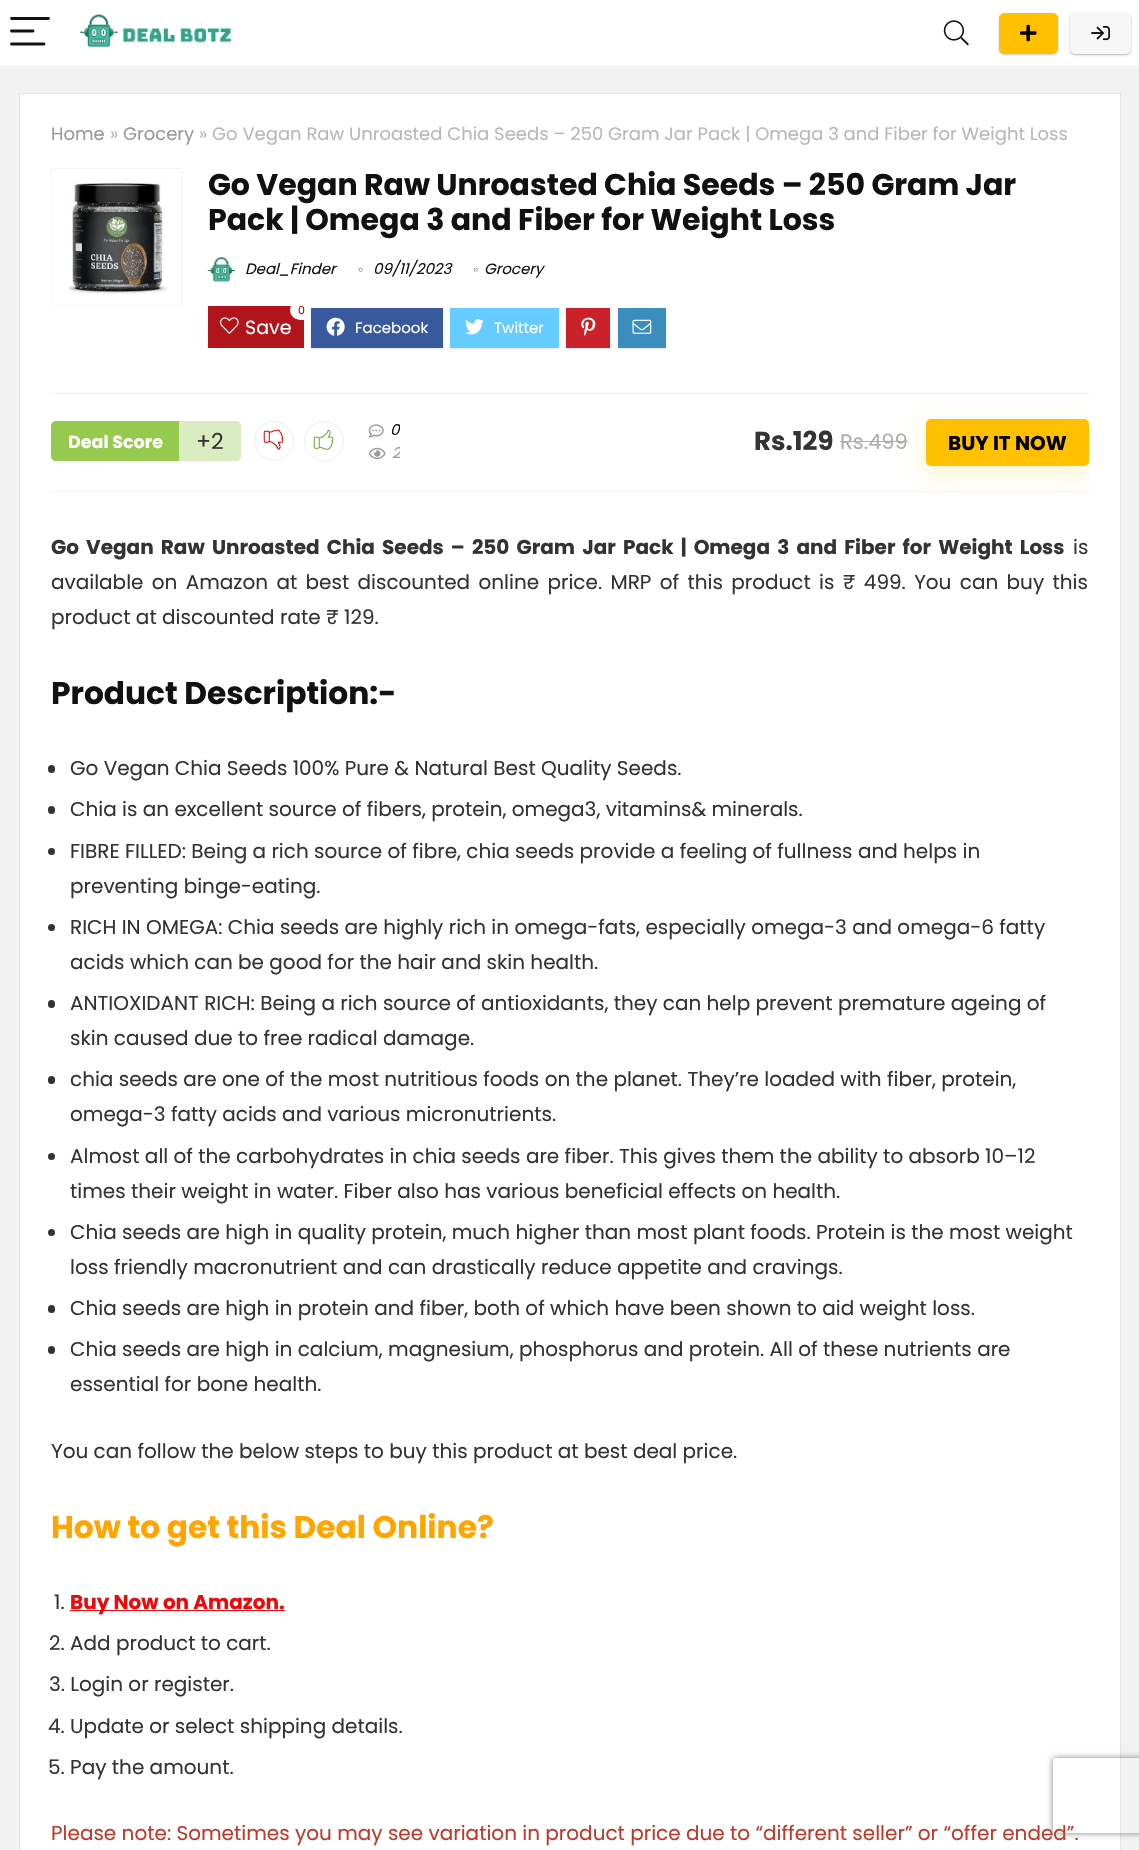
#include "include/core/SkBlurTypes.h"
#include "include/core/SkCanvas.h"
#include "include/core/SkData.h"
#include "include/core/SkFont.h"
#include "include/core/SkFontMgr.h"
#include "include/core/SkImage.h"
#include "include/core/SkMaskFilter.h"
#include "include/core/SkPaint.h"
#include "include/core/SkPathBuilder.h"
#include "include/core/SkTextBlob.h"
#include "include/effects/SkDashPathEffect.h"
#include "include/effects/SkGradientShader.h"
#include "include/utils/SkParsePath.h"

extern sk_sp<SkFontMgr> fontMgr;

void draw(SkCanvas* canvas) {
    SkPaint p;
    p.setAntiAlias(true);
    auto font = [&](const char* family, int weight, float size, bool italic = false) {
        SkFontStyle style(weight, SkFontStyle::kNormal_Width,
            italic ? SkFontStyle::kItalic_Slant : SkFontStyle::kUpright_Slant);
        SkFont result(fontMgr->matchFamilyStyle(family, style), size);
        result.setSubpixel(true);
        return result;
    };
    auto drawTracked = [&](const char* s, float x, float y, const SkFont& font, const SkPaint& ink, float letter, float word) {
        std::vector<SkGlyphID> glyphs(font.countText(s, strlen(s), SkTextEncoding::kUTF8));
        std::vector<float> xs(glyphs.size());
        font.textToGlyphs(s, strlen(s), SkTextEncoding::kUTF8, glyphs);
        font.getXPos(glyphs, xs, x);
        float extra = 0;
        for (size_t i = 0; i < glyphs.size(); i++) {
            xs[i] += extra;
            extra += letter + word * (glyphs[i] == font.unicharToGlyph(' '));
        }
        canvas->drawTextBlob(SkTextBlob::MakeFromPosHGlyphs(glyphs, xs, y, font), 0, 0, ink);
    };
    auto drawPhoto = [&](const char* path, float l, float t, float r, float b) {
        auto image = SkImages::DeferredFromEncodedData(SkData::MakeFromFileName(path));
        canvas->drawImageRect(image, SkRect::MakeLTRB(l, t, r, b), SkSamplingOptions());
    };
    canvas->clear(0xFFF2F2F2);
    p.setColor(0xFFFFFFFF);
    canvas->drawRect(SkRect::MakeLTRB(0, 0, 1139, 68), p);
    p.setColor(0xFFEEEEEE);
    canvas->drawRect(SkRect::MakeLTRB(0, 66, 1139, 67), p);
    p.setStyle(SkPaint::kStroke_Style);
    p.setStrokeWidth(2.8f);
    p.setStrokeCap(SkPaint::kRound_Cap);
    p.setColor(0xFF111111);
    canvas->drawPath(SkPathBuilder().moveTo(11.5f, 18.5f).lineTo(48.5f, 18.5f).moveTo(11.5f, 31).lineTo(33, 31).moveTo(11.5f, 44).lineTo(44, 44).detach(), p);
    drawPhoto("media/1.png", 80, 14, 232, 48);
    drawPhoto("media/2.png", 943, 20, 969, 46);
    p.setStyle(SkPaint::kFill_Style);
    p.setColor(0x33000000);
    p.setMaskFilter(SkMaskFilter::MakeBlur(kNormal_SkBlurStyle, 1));
    canvas->drawRoundRect(SkRect::MakeLTRB(999, 14, 1058, 55), 5, 5, p);
    p.setMaskFilter(nullptr);
    p.setColor(0xFFFFC000);
    canvas->drawRoundRect(SkRect::MakeLTRB(999.5f, 13.5f, 1057.5f, 53.5f), 4.5f, 4.5f, p);
    p.setStyle(SkPaint::kStroke_Style);
    p.setStrokeWidth(1);
    p.setStrokeCap(SkPaint::kButt_Cap);
    canvas->drawRoundRect(SkRect::MakeLTRB(999.5f, 13.5f, 1057.5f, 53.5f), 4.5f, 4.5f, p);
    drawPhoto("media/3.png", 1020, 24, 1037, 42);
    p.setStyle(SkPaint::kFill_Style);
    p.setColor(0x14000000);
    p.setMaskFilter(SkMaskFilter::MakeBlur(kNormal_SkBlurStyle, 1));
    canvas->drawRoundRect(SkRect::MakeLTRB(1070, 14, 1131, 55), 5, 5, p);
    p.setMaskFilter(nullptr);
    p.setColor(0x4D3C4043);
    p.setMaskFilter(SkMaskFilter::MakeBlur(kNormal_SkBlurStyle, 1));
    canvas->drawRoundRect(SkRect::MakeLTRB(1070, 14, 1131, 55), 5, 5, p);
    p.setMaskFilter(nullptr);
    p.setColor(0xFFF6F6F6);
    canvas->drawRoundRect(SkRect::MakeLTRB(1070, 13, 1131, 54), 5, 5, p);
    drawPhoto("media/4.png", 1091, 26, 1110, 41);
    p.setColor(0xFFFFFFFF);
    canvas->drawRect(SkRect::MakeLTRB(19.5f, 93.5f, 1120.5f, 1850.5f), p);
    p.setStyle(SkPaint::kStroke_Style);
    p.setColor(0xFFE3E3E3);
    canvas->drawRect(SkRect::MakeLTRB(19.5f, 93.5f, 1120.5f, 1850.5f), p);
    auto font1 = font("Poppins", 400, 18);
    p.setStyle(SkPaint::kFill_Style);
    p.setColor(0xFF999999);
    canvas->drawString("Home", 51, 140, font1, p);
    p.setColor(0xFFB8B8B8);
    canvas->drawString("»", 110, 140, font1, p);
    p.setColor(0xFF999999);
    canvas->drawString("Grocery", 123, 140, font1, p);
    p.setColor(0xFFB8B8B8);
    canvas->drawString("» Go Vegan Raw Unroasted Chia Seeds – 250 Gram Jar Pack | Omega 3 and Fiber for Weight Loss", 199, 140, font1, p);
    p.setStyle(SkPaint::kStroke_Style);
    p.setColor(0xFFF4F4F4);
    canvas->drawRect(SkRect::MakeLTRB(51.5f, 168.5f, 182.5f, 305.5f), p);
    drawPhoto("media/5.png", 68, 182, 168, 295);
    auto font2 = font("Poppins", 700, 30);
    p.setStyle(SkPaint::kFill_Style);
    p.setColor(0xFF111111);
    canvas->drawString("Go Vegan Raw Unroasted Chia Seeds – 250 Gram Jar", 208, 195, font2, p);
    canvas->drawString("Pack | Omega 3 and Fiber for Weight Loss", 208, 230, font2, p);
    drawPhoto("media/6.png", 207, 257, 235, 283);
    auto font3 = font("Poppins", 400, 15, true);
    canvas->drawString("Deal_Finder", 245, 274, font3, p);
    drawPhoto("media/7.png", 358, 267, 363, 272);
    canvas->drawString("09/11/2023", 373, 274, font3, p);
    drawPhoto("media/7.png", 473, 267, 478, 272);
    canvas->drawString("Grocery", 484, 274, font3, p);
    p.setColor(0xFFB1141A);
    canvas->drawRect(SkRect::MakeLTRB(208, 306, 304, 348), p);
    canvas->save();
    canvas->clipRect(SkRect::MakeLTRB(208, 303, 1064, 355));
    p.setColor(0xFFFFFFFF);
    canvas->drawRoundRect(SkRect::MakeLTRB(290, 300, 313, 320), 10, 10, p);
    canvas->restore();
    auto font4 = font("Poppins", 400, 11);
    p.setColor(0xFFCC0000);
    canvas->drawString("0", 298, 314, font4, p);
    drawPhoto("media/8.png", 220, 317, 239, 334);
    auto font5 = font("Poppins", 400, 19);
    p.setColor(0xFFFFFFFF);
    canvas->drawString("Save", 245, 334, font5, p);
    p.setColor(0xFFE4E4E4);
    p.setMaskFilter(SkMaskFilter::MakeBlur(kNormal_SkBlurStyle, 1));
    canvas->drawRect(SkRect::MakeLTRB(311, 309, 443, 349), p);
    p.setMaskFilter(nullptr);
    p.setColor(0xFF39599F);
    canvas->drawRect(SkRect::MakeLTRB(311, 308, 443, 348), p);
    drawPhoto("media/9.png", 326, 317, 345, 336);
    auto font6 = font("Poppins", 400, 15);
    p.setColor(0xFFFFFFFF);
    canvas->drawString("Facebook", 355, 333, font6, p);
    p.setColor(0xFFE4E4E4);
    p.setMaskFilter(SkMaskFilter::MakeBlur(kNormal_SkBlurStyle, 1));
    canvas->drawRect(SkRect::MakeLTRB(450, 309, 559, 349), p);
    p.setMaskFilter(nullptr);
    p.setColor(0xFF66CCFF);
    canvas->drawRect(SkRect::MakeLTRB(450, 308, 559, 348), p);
    drawPhoto("media/10.png", 465, 319, 484, 335);
    p.setColor(0xFFFFFFFF);
    canvas->drawString("Twitter", 494, 333, font6, p);
    p.setColor(0xFFE4E4E4);
    p.setMaskFilter(SkMaskFilter::MakeBlur(kNormal_SkBlurStyle, 1));
    canvas->drawRect(SkRect::MakeLTRB(566, 309, 610, 349), p);
    p.setMaskFilter(nullptr);
    p.setColor(0xFFCA212A);
    canvas->drawRect(SkRect::MakeLTRB(566, 308, 610, 348), p);
    drawPhoto("media/11.png", 581, 317, 596, 336);
    p.setColor(0xFFE4E4E4);
    p.setMaskFilter(SkMaskFilter::MakeBlur(kNormal_SkBlurStyle, 1));
    canvas->drawRect(SkRect::MakeLTRB(618, 309, 666, 349), p);
    p.setMaskFilter(nullptr);
    p.setColor(0xFF3B8DBD);
    canvas->drawRect(SkRect::MakeLTRB(618, 308, 666, 348), p);
    drawPhoto("media/12.png", 632, 319, 652, 334);
    p.setColor(0xFFF0F0F0);
    canvas->drawRect(SkRect::MakeLTRB(51, 393, 1089, 394), p);
    canvas->drawRect(SkRect::MakeLTRB(51, 491, 1089, 492), p);
    p.setColor(0xFF96CA4E);
    canvas->drawPath(SkPathBuilder().moveTo(56, 421).lineTo(179, 421).lineTo(179, 461).lineTo(56, 461).cubicTo(53, 461, 51, 459, 51, 456).lineTo(51, 426).cubicTo(51, 423, 53, 421, 56, 421).close().detach(), p);
    auto font7 = font("Poppins", 700, 17.5f);
    p.setColor(0xFFFFFFFF);
    canvas->drawString("Deal Score", 68, 448, font7, p);
    p.setColor(0xFFDAECC2);
    canvas->drawPath(SkPathBuilder().moveTo(179, 421).lineTo(236, 421).cubicTo(239, 421, 241, 423, 241, 426).lineTo(241, 456).cubicTo(241, 459, 239, 461, 236, 461).lineTo(179, 461).close().detach(), p);
    auto font8 = font("Poppins", 400, 22);
    p.setColor(0xFF333333);
    canvas->drawString("+2", 196, 449, font8, p);
    p.setStyle(SkPaint::kStroke_Style);
    p.setColor(0xFFEDEDED);
    canvas->drawCircle(274, 441, 19.5f, p);
    drawPhoto("media/13.png", 263, 429, 284, 450);
    canvas->drawCircle(324, 441, 19.5f, p);
    drawPhoto("media/14.png", 313, 429, 334, 450);
    drawPhoto("media/15.png", 368, 424, 384, 438);
    canvas->save();
    canvas->clipRect(SkRect::MakeLTRB(51, 419, 400, 464));
    p.setStyle(SkPaint::kFill_Style);
    p.setColor(0xFF111111);
    canvas->drawString("0", 390, 435, font3, p);
    canvas->restore();
    drawPhoto("media/16.png", 368, 447, 386, 459);
    canvas->save();
    canvas->clipRect(SkRect::MakeLTRB(51, 419, 400, 464));
    p.setColor(0xFF999999);
    canvas->drawString("2", 392, 458, font3, p);
    canvas->restore();
    auto font9 = font("Poppins", 700, 26);
    p.setColor(0xFF333333);
    canvas->drawString("Rs.129", 754, 450, font9, p);
    auto font10 = font("Poppins", 400, 21);
    p.setColor(0xFFADADAD);
    canvas->drawString("Rs.499", 840, 449, font10, p);
    canvas->drawRect(SkRect::MakeLTRB(840, 441, 908, 442), p);
    canvas->save();
    canvas->clipRect(SkRect::MakeLTRB(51, 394, 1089, 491));
    p.setColor(0x33FFC000);
    p.setMaskFilter(SkMaskFilter::MakeBlur(kNormal_SkBlurStyle, 12));
    canvas->drawRoundRect(SkRect::MakeLTRB(925, 426, 1088, 474), 5, 5, p);
    p.setMaskFilter(nullptr);
    canvas->restore();
    p.setColor(0xFFFFC000);
    canvas->drawRoundRect(SkRect::MakeLTRB(926, 419, 1089, 466), 5, 5, p);
    auto font11 = font("Poppins", 700, 20);
    p.setColor(0xFF000000);
    canvas->drawString("BUY IT NOW", 948, 450, font11, p);
    p.setColor(0xFF333333);
    drawTracked("Go Vegan Raw Unroasted Chia Seeds – 250 Gram Jar Pack | Omega 3 and Fiber for Weight Loss", 51, 554, font11, p, 0, 2.9f);
    auto font12 = font("Poppins", 400, 20);
    canvas->drawString("is", 1073, 554, font12, p);
    drawTracked("available on Amazon at best discounted online price. MRP of this product is ₹ 499. You can buy this", 51, 589, font12, p, 0, 3);
    canvas->drawString("product at discounted rate ₹ 129.", 51, 624, font12, p);
    auto font13 = font("Poppins", 700, 31.25f);
    p.setColor(0xFF111111);
    canvas->drawString("Product Description:-", 51, 704, font13, p);
    p.setColor(0xFF333333);
    canvas->drawRoundRect(SkRect::MakeLTRB(48, 765, 55, 773), 3.5f, 3.5f, p);
    canvas->drawString("Go Vegan Chia Seeds 100% Pure & Natural Best Quality Seeds.", 70, 775, font12, p);
    canvas->drawRoundRect(SkRect::MakeLTRB(48, 806, 55, 814), 3.5f, 3.5f, p);
    canvas->drawString("Chia is an excellent source of fibers, protein, omega3, vitamins& minerals.", 70, 816, font12, p);
    canvas->drawCircle(51.5f, 851.5f, 3.5f, p);
    canvas->drawString("FIBRE FILLED: Being a rich source of fibre, chia seeds provide a feeling of fullness and helps in", 70, 858, font12, p);
    canvas->drawString("preventing binge-eating.", 70, 893, font12, p);
    canvas->drawCircle(51.5f, 927.5f, 3.5f, p);
    canvas->drawString("RICH IN OMEGA: Chia seeds are highly rich in omega-fats, especially omega-3 and omega-6 fatty", 70, 934, font12, p);
    canvas->drawString("acids which can be good for the hair and skin health.", 70, 969, font12, p);
    canvas->drawRoundRect(SkRect::MakeLTRB(48, 1000, 55, 1008), 3.5f, 3.5f, p);
    canvas->drawString("ANTIOXIDANT RICH: Being a rich source of antioxidants, they can help prevent premature ageing of", 70, 1010, font12, p);
    canvas->drawString("skin caused due to free radical damage.", 70, 1045, font12, p);
    canvas->drawRoundRect(SkRect::MakeLTRB(48, 1076, 55, 1084), 3.5f, 3.5f, p);
    canvas->drawString("chia seeds are one of the most nutritious foods on the planet. They’re loaded with fiber, protein,", 70, 1086, font12, p);
    canvas->drawString("omega-3 fatty acids and various micronutrients.", 70, 1121, font12, p);
    canvas->drawCircle(51.5f, 1156.5f, 3.5f, p);
    canvas->drawString("Almost all of the carbohydrates in chia seeds are fiber. This gives them the ability to absorb 10–12", 70, 1163, font12, p);
    canvas->drawString("times their weight in water. Fiber also has various beneficial effects on health.", 70, 1198, font12, p);
    canvas->drawCircle(51.5f, 1232.5f, 3.5f, p);
    canvas->drawString("Chia seeds are high in quality protein, much higher than most plant foods. Protein is the most weight", 70, 1239, font12, p);
    canvas->drawString("loss friendly macronutrient and can drastically reduce appetite and cravings.", 70, 1274, font12, p);
    canvas->drawRoundRect(SkRect::MakeLTRB(48, 1305, 55, 1313), 3.5f, 3.5f, p);
    canvas->drawString("Chia seeds are high in protein and fiber, both of which have been shown to aid weight loss.", 70, 1315, font12, p);
    canvas->drawRoundRect(SkRect::MakeLTRB(48, 1346, 55, 1354), 3.5f, 3.5f, p);
    {
        const struct { const char* s; float x, y; } items[] = {
            {"Chia seeds are high in calcium, magnesium, phosphorus and protein. All of these nutrients are", 70, 1356},
            {"essential for bone health.", 70, 1391},
            {"You can follow the below steps to buy this product at best deal price.", 51, 1458},
        };
        for (auto [s, x, y] : items) {
            canvas->drawString(s, x, y, font12, p);
        }
    }
    p.setColor(0xFFFFA500);
    canvas->drawString("How to get this Deal Online?", 51, 1538, font13, p);
    p.setColor(0xFF333333);
    canvas->drawString("1.", 54, 1609, font12, p);
    p.setColor(0xFFEB0909);
    canvas->drawRect(SkRect::MakeLTRB(70, 1610, 285, 1611), p);
    canvas->drawString("Buy Now on Amazon.", 70, 1609, font11, p);
    p.setColor(0xFF333333);
    {
        const struct { const char* s; float x, y; } items[] = {
            {"2. Add product to cart.", 49, 1650},
            {"3. Login or register.", 49, 1691},
            {"4. Update or select shipping details.", 48, 1733},
            {"5. Pay the amount.", 48, 1774},
        };
        for (auto [s, x, y] : items) {
            canvas->drawString(s, x, y, font12, p);
        }
    }
    p.setColor(0xFFC0392B);
    canvas->drawString("Please note: Sometimes you may see variation in product price due to “different seller” or “offer ended”.", 51, 1840, font12, p);
    canvas->save();
    canvas->clipPath(SkPathBuilder(SkPathFillType::kEvenOdd).moveTo(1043, 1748).lineTo(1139, 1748).lineTo(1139, 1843).lineTo(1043, 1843).close().moveTo(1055.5f, 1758).lineTo(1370.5f, 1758).cubicTo(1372, 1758, 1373, 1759, 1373, 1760.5f).lineTo(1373, 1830.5f).cubicTo(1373, 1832, 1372, 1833, 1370.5f, 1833).lineTo(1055.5f, 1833).cubicTo(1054, 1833, 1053, 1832, 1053, 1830.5f).lineTo(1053, 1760.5f).cubicTo(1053, 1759, 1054, 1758, 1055.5f, 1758).close().detach(), true);
    p.setColor(0xFF808080);
    p.setMaskFilter(SkMaskFilter::MakeBlur(kNormal_SkBlurStyle, 3));
    canvas->drawRoundRect(SkRect::MakeLTRB(1053, 1758, 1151, 1833), 2.5f, 2.5f, p);
    p.setMaskFilter(nullptr);
    canvas->restore();
}
